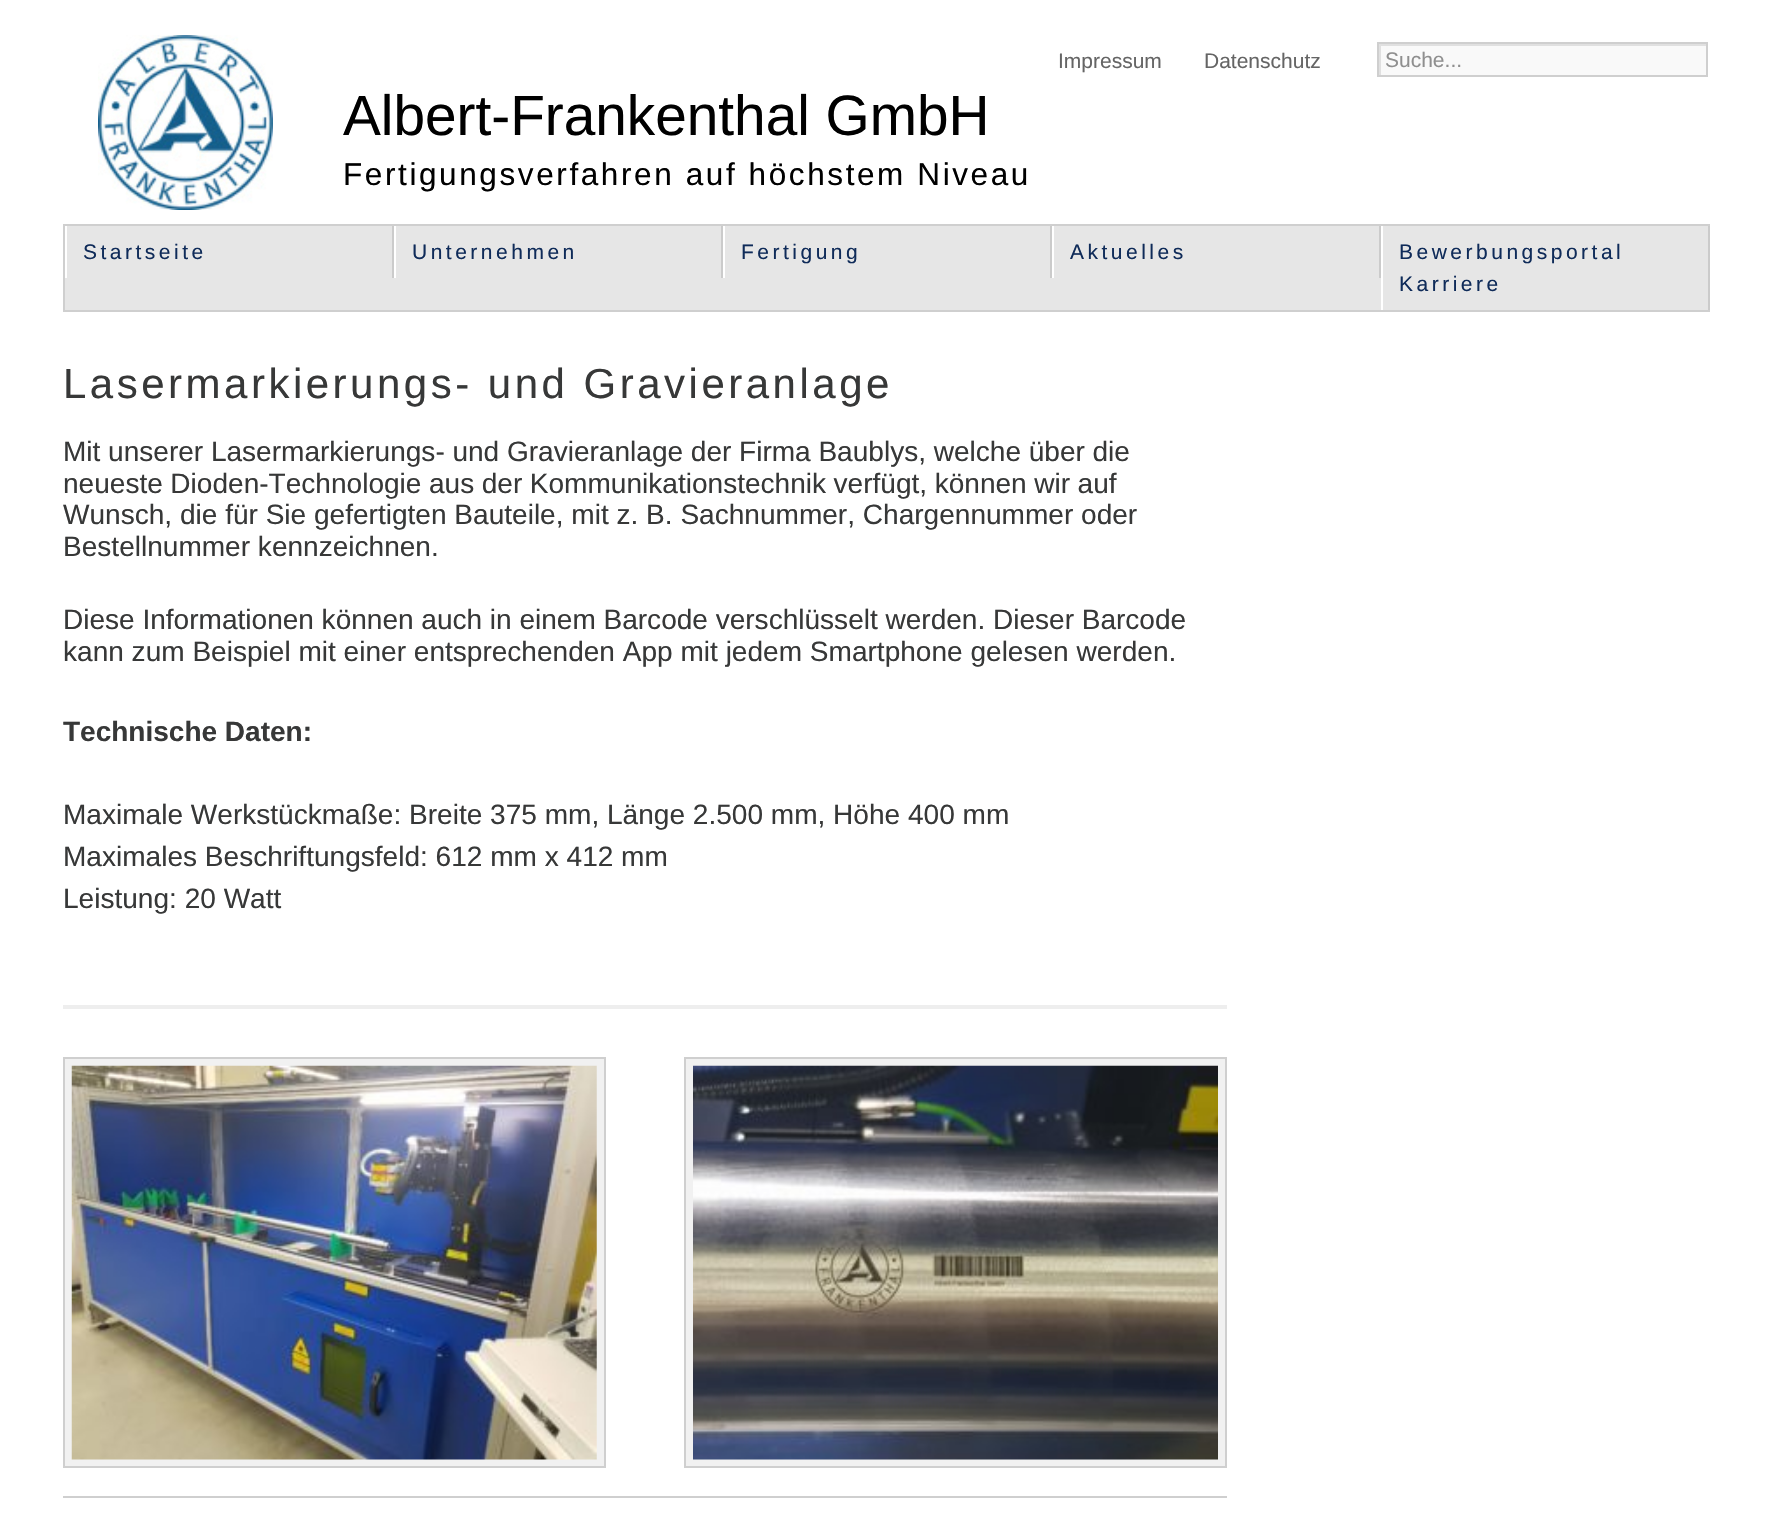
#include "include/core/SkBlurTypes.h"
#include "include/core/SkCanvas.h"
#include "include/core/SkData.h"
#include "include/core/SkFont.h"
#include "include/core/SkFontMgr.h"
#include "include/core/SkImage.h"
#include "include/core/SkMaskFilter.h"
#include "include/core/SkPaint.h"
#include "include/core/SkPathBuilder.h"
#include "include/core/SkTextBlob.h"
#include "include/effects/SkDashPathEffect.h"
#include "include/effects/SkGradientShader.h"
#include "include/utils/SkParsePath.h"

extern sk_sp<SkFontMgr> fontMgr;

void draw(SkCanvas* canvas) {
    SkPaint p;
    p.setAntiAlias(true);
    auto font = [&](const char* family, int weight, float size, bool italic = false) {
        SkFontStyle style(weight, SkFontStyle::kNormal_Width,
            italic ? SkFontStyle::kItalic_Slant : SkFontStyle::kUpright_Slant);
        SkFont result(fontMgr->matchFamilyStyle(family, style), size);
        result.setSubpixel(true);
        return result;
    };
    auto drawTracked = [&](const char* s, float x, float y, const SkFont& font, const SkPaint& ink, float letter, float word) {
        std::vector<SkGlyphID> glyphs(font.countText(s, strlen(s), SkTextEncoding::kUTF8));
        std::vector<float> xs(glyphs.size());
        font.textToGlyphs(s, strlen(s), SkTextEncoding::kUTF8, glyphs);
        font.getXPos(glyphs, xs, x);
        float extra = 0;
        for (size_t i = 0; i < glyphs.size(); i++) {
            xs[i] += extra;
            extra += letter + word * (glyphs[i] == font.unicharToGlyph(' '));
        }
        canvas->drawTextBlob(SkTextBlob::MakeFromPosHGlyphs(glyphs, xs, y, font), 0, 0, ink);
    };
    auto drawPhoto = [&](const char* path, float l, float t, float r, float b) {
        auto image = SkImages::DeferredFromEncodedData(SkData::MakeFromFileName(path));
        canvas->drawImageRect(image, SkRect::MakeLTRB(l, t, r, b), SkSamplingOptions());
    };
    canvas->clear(0xFFFFFFFF);
    drawPhoto("media/1.png", 98, 35, 273, 210);
    auto font1 = font("Liberation Sans", 400, 21);
    p.setColor(0xFF656565);
    canvas->drawString("Impressum", 1058, 68, font1, p);
    canvas->drawString("Datenschutz", 1204, 68, font1, p);
    p.setColor(0xFFF9F9F9);
    canvas->drawRect(SkRect::MakeLTRB(1381, 46, 1706, 75), p);
    canvas->save();
    canvas->clipRect(SkRect::MakeLTRB(1379, 44, 1706, 75));
    p.setColor(0xFFE0E0E0);
    canvas->drawPath(SkPathBuilder(SkPathFillType::kEvenOdd).moveTo(1206, -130).lineTo(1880, -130).lineTo(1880, 248).lineTo(1206, 248).close().moveTo(1381, 46).lineTo(1708, 46).lineTo(1708, 77).lineTo(1381, 77).close().detach(), p);
    canvas->restore();
    p.setStyle(SkPaint::kStroke_Style);
    p.setStrokeWidth(2);
    p.setColor(0xFFCFCFCF);
    canvas->drawRect(SkRect::MakeLTRB(1378, 43, 1707, 76), p);
    p.setStyle(SkPaint::kFill_Style);
    p.setColor(0xFF8F8F8F);
    canvas->drawString("Suche...", 1385, 67, font1, p);
    auto font2 = font("Liberation Sans", 400, 56.75f);
    p.setColor(0xFF000000);
    canvas->drawString("Albert-Frankenthal GmbH", 343, 135, font2, p);
    auto font3 = font("Liberation Sans", 400, 31.5f);
    drawTracked("Fertigungsverfahren auf höchstem Niveau", 343, 185, font3, p, 2.6f, 0);
    {
        const struct { float l, t, r, b; SkColor color; } items[] = {
            {65, 226, 1708, 310, 0xFFE6E6E6},
            {63, 224, 1710, 226, 0xFFCFCFCF},
            {63, 310, 1710, 312, 0xFFCFCFCF},
            {63, 224, 65, 312, 0xFFCFCFCF},
            {392, 226, 394, 278, 0xFFCBCBCB},
            {65, 226, 67, 278, 0xFFFFFFFF},
        };
        for (auto [l, t, r, b, color] : items) {
            p.setColor(color);
            canvas->drawRect(SkRect::MakeLTRB(l, t, r, b), p);
        }
    }
    p.setColor(0xFF0F2B59);
    drawTracked("Startseite", 83, 259, font1, p, 3.5f, 0);
    p.setColor(0xFFCBCBCB);
    canvas->drawRect(SkRect::MakeLTRB(721, 226, 723, 278), p);
    p.setColor(0xFFFFFFFF);
    canvas->drawRect(SkRect::MakeLTRB(394, 226, 396, 278), p);
    p.setColor(0xFF0F2B59);
    drawTracked("Unternehmen", 412, 259, font1, p, 3.5f, 0);
    p.setColor(0xFFCBCBCB);
    canvas->drawRect(SkRect::MakeLTRB(1050, 226, 1052, 278), p);
    p.setColor(0xFFFFFFFF);
    canvas->drawRect(SkRect::MakeLTRB(723, 226, 725, 278), p);
    p.setColor(0xFF0F2B59);
    drawTracked("Fertigung", 741, 259, font1, p, 3.5f, 0);
    p.setColor(0xFFCBCBCB);
    canvas->drawRect(SkRect::MakeLTRB(1379, 226, 1381, 278), p);
    p.setColor(0xFFFFFFFF);
    canvas->drawRect(SkRect::MakeLTRB(1052, 226, 1054, 278), p);
    p.setColor(0xFF0F2B59);
    drawTracked("Aktuelles", 1070, 259, font1, p, 3.5f, 0);
    p.setColor(0xFFCBCBCB);
    canvas->drawRect(SkRect::MakeLTRB(1708, 226, 1710, 310), p);
    p.setColor(0xFFFFFFFF);
    canvas->drawRect(SkRect::MakeLTRB(1381, 226, 1383, 310), p);
    p.setColor(0xFF0F2B59);
    drawTracked("Bewerbungsportal", 1399, 259, font1, p, 3.5f, 0);
    drawTracked("Karriere", 1399, 291, font1, p, 3.5f, 0);
    p.setColor(0xFFCFCFCF);
    canvas->drawRect(SkRect::MakeLTRB(63, 1496, 1227, 1498), p);
    auto font4 = font("Liberation Sans", 400, 42);
    p.setColor(0xFF373838);
    drawTracked("Lasermarkierungs- und Gravieranlage", 63, 398, font4, p, 3.5f, 0);
    auto font5 = font("Liberation Sans", 400, 28.05f);
    drawTracked("Mit unserer Lasermarkierungs- und Gravieranlage der Firma Baublys, welche über die", 63, 461, font5, p, 0, -0.1f);
    drawTracked("neueste Dioden-Technologie aus der Kommunikationstechnik verfügt, können wir auf", 63, 493, font5, p, 0, -0.25f);
    canvas->drawString("Wunsch, die für Sie gefertigten Bauteile, mit z. B. Sachnummer, Chargennummer oder", 63, 524, font5, p);
    canvas->drawString("Bestellnummer kennzeichnen.", 63, 556, font5, p);
    drawTracked("Diese Informationen können auch in einem Barcode verschlüsselt werden. Dieser Barcode", 63, 629, font5, p, 0, -0.1f);
    canvas->drawString("kann zum Beispiel mit einer entsprechenden App mit jedem Smartphone gelesen werden.", 63, 661, font5, p);
    auto font6 = font("Liberation Sans", 700, 28);
    canvas->drawString("Technische Daten:", 63, 741, font6, p);
    {
        const struct { const char* s; float x, y; } items[] = {
            {"Maximale Werkstückmaße: Breite 375 mm, Länge 2.500 mm, Höhe 400 mm", 63, 824},
            {"Maximales Beschriftungsfeld: 612 mm x 412 mm", 63, 866},
            {"Leistung: 20 Watt", 63, 908},
        };
        for (auto [s, x, y] : items) {
            canvas->drawString(s, x, y, font5, p);
        }
    }
    p.setColor(0xFFEEEEEE);
    canvas->drawRect(SkRect::MakeLTRB(63, 1005, 1227, 1009), p);
    p.setColor(0xFFF1F1F1);
    canvas->drawRect(SkRect::MakeLTRB(64, 1058, 605, 1467), p);
    p.setStyle(SkPaint::kStroke_Style);
    p.setColor(0xFFCFCFCF);
    canvas->drawRect(SkRect::MakeLTRB(64, 1058, 605, 1467), p);
    drawPhoto("media/2.png", 71, 1065, 597, 1460);
    p.setStyle(SkPaint::kFill_Style);
    p.setColor(0xFFF1F1F1);
    canvas->drawRect(SkRect::MakeLTRB(685, 1058, 1226, 1467), p);
    p.setStyle(SkPaint::kStroke_Style);
    p.setColor(0xFFCFCFCF);
    canvas->drawRect(SkRect::MakeLTRB(685, 1058, 1226, 1467), p);
    drawPhoto("media/3.png", 693, 1065, 1218, 1460);
}
